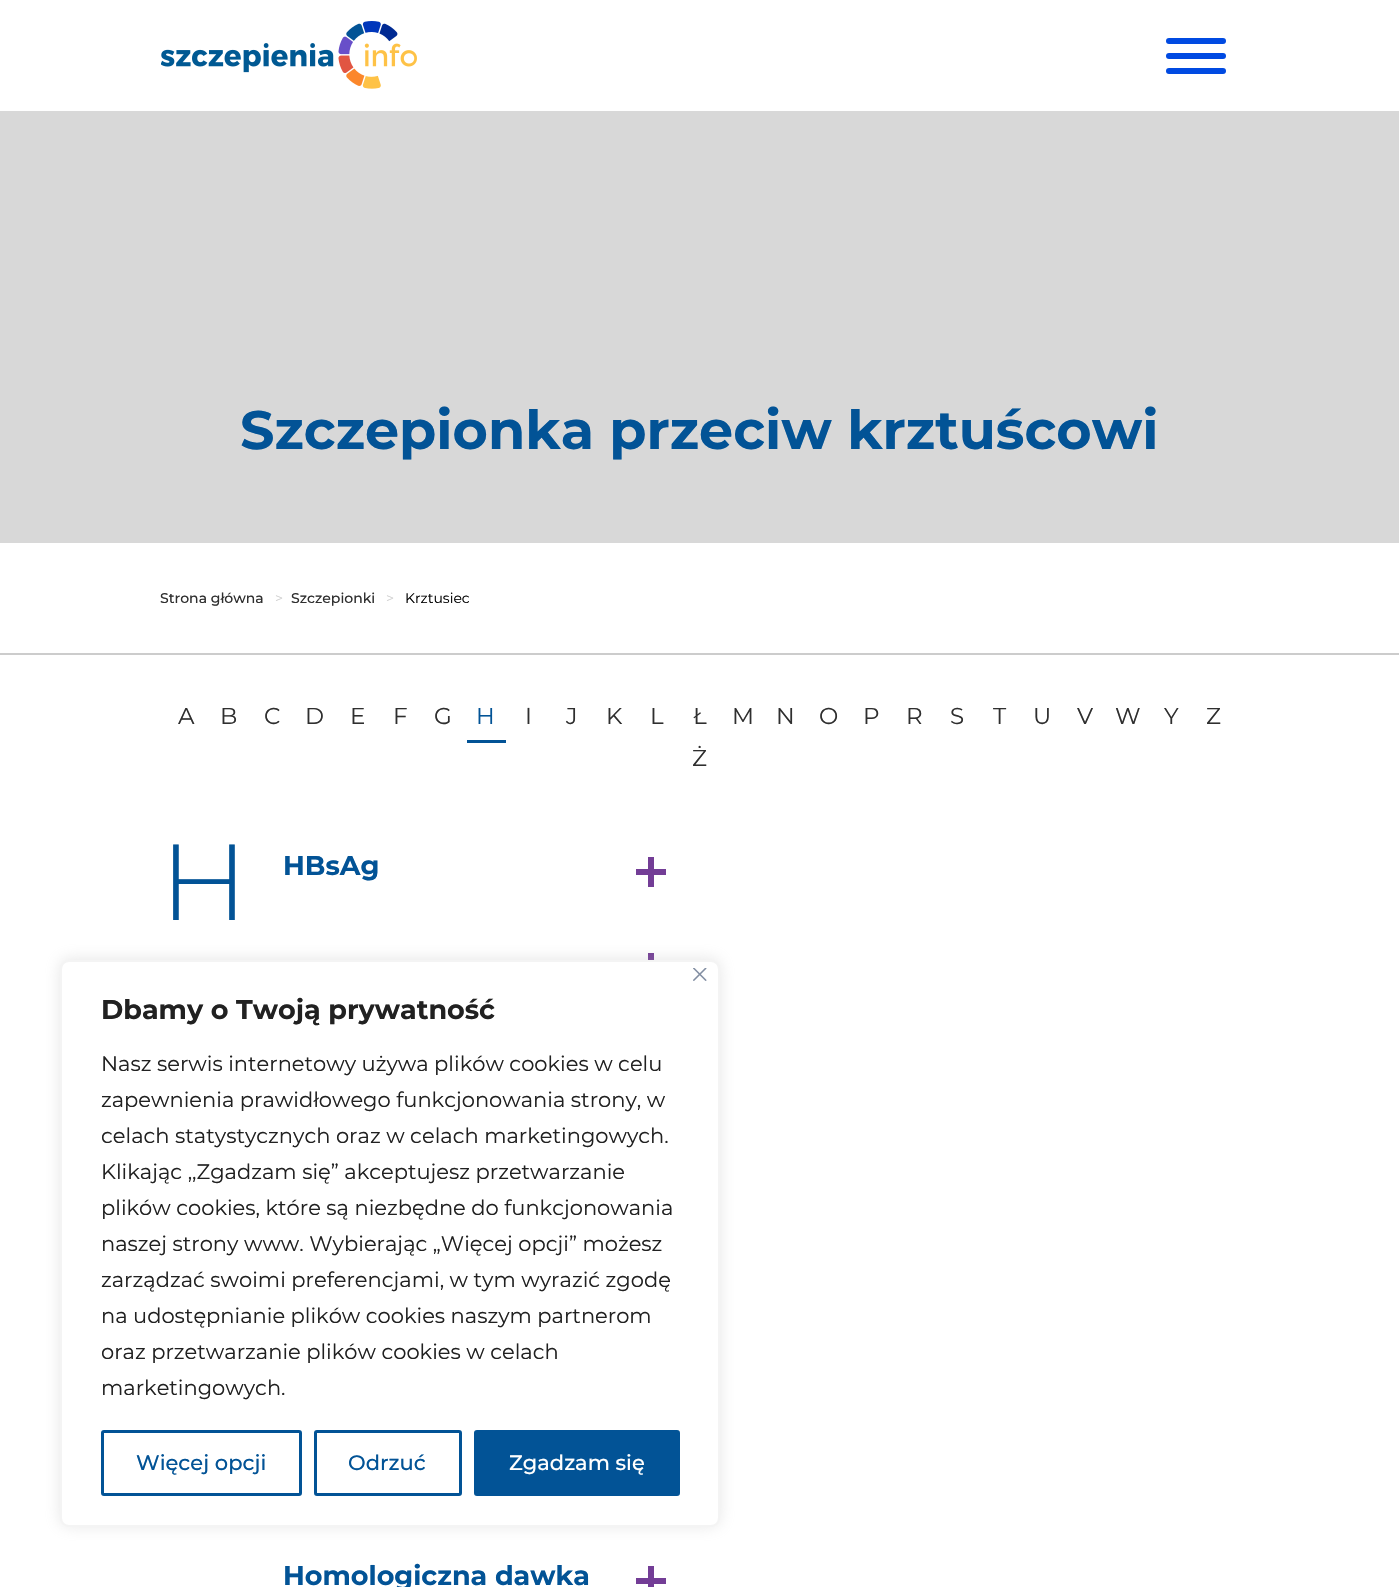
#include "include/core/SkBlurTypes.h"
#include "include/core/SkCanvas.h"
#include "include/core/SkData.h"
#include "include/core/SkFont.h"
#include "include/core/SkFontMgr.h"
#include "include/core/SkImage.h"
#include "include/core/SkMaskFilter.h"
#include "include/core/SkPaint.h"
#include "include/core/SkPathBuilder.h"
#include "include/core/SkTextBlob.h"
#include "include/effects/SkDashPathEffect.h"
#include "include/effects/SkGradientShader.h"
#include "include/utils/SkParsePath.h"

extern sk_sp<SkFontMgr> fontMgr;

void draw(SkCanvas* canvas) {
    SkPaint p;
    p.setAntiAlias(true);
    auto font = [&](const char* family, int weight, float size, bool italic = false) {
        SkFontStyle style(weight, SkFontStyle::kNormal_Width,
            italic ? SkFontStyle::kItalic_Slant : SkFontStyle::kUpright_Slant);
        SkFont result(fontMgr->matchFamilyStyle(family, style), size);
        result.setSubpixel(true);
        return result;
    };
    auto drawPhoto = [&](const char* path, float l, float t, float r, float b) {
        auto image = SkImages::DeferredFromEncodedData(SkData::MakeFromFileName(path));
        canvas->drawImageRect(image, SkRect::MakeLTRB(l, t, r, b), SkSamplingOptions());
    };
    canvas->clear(0xFFFFFFFF);
    drawPhoto("media/1.png", 161, 21, 417, 89);
    p.setColor(0xFF004AE2);
    canvas->drawRoundRect(SkRect::MakeLTRB(1166, 68, 1226, 74), 3, 3, p);
    canvas->drawRoundRect(SkRect::MakeLTRB(1166, 38, 1226, 44), 3, 3, p);
    canvas->drawRoundRect(SkRect::MakeLTRB(1166, 53, 1226, 59), 3, 3, p);
    p.setColor(0xFFD8D8D8);
    canvas->drawRect(SkRect::MakeLTRB(0, 111, 1399, 543), p);
    auto font1 = font("Montserrat", 700, 54);
    p.setColor(0xFF025396);
    canvas->drawString("Szczepionka przeciw krztuścowi", 240, 449, font1, p);
    p.setColor(0xFFCCCCCC);
    canvas->drawRect(SkRect::MakeLTRB(0, 653, 1399, 655), p);
    auto font2 = font("Montserrat", 500, 14);
    p.setColor(0xFF2F2F2F);
    canvas->drawString("Strona główna", 160, 603, font2, p);
    auto font3 = font("Montserrat", 400, 14);
    p.setColor(0xFFCCCCCC);
    canvas->drawString(">", 275, 603, font3, p);
    p.setColor(0xFF2F2F2F);
    canvas->drawString("Szczepionki", 291, 603, font2, p);
    p.setColor(0xFFCCCCCC);
    canvas->drawString(">", 386, 603, font3, p);
    p.setColor(0xFF000000);
    canvas->drawString("Krztusiec", 405, 603, font3, p);
    auto font4 = font("Montserrat", 400, 23);
    p.setColor(0xFF2F2F2F);
    {
        const struct { const char* s; float x, y; } items[] = {
            {"A", 178, 724},
            {"B", 220, 724},
            {"C", 264, 724},
            {"D", 305, 724},
            {"E", 350, 724},
            {"F", 393, 724},
            {"G", 434, 724},
        };
        for (auto [s, x, y] : items) {
            canvas->drawString(s, x, y, font4, p);
        }
    }
    p.setColor(0xFF025396);
    canvas->drawRect(SkRect::MakeLTRB(467, 740, 506, 743), p);
    canvas->drawString("H", 476, 724, font4, p);
    p.setColor(0xFF2F2F2F);
    {
        const struct { const char* s; float x, y; } items[] = {
            {"I", 525, 724},
            {"J", 566, 724},
            {"K", 606, 724},
            {"L", 650, 724},
            {"Ł", 693, 724},
            {"M", 732, 724},
            {"N", 776, 724},
            {"O", 819, 724},
            {"P", 863, 724},
            {"R", 906, 724},
            {"S", 950, 724},
            {"T", 993, 724},
            {"U", 1033, 724},
            {"V", 1077, 724},
            {"W", 1115, 724},
            {"Y", 1164, 724},
            {"Z", 1206, 724},
            {"Ż", 692, 766},
        };
        for (auto [s, x, y] : items) {
            canvas->drawString(s, x, y, font4, p);
        }
    }
    auto font5 = font("Montserrat", 300, 108);
    p.setColor(0xFF025396);
    canvas->drawString("H", 160, 920, font5, p);
    auto font6 = font("Montserrat", 700, 27);
    canvas->drawString("HBsAg", 283, 875, font6, p);
    {
        const struct { float l, t, r, b; SkColor color; } items[] = {
            {636, 869, 666, 875, 0xFF733D96},
            {648, 857, 654, 887, 0xFF733D96},
            {648, 953, 654, 960, 0xFF733D96},
        };
        for (auto [l, t, r, b, color] : items) {
            p.setColor(color);
            canvas->drawRect(SkRect::MakeLTRB(l, t, r, b), p);
        }
    }
    p.setColor(0xFF025396);
    canvas->drawString("Homologiczna dawka", 283, 1585, font6, p);
    p.setColor(0xFF733D96);
    canvas->drawRect(SkRect::MakeLTRB(636, 1578, 666, 1584), p);
    canvas->drawRect(SkRect::MakeLTRB(648, 1566, 654, 1587), p);
    p.setColor(0x4DACABAB);
    p.setMaskFilter(SkMaskFilter::MakeBlur(kNormal_SkBlurStyle, 7.5f));
    canvas->drawRoundRect(SkRect::MakeLTRB(60, 959, 720, 1526), 9, 9, p);
    p.setMaskFilter(nullptr);
    p.setColor(0xFFFFFFFF);
    canvas->drawRoundRect(SkRect::MakeLTRB(61, 961, 719, 1526), 8, 8, p);
    p.setStyle(SkPaint::kStroke_Style);
    p.setStrokeWidth(2);
    p.setColor(0xFFF4F4F4);
    canvas->drawRoundRect(SkRect::MakeLTRB(61, 961, 719, 1526), 8, 8, p);
    drawPhoto("media/2.png", 693, 968, 707, 981);
    p.setStyle(SkPaint::kFill_Style);
    p.setColor(0xFF212121);
    canvas->drawString("Dbamy o Twoją prywatność", 101, 1019, font6, p);
    auto font7 = font("Montserrat", 400, 21);
    {
        const struct { const char* s; float x, y; } items[] = {
            {"Nasz serwis internetowy używa plików cookies w celu", 101, 1071},
            {"zapewnienia prawidłowego funkcjonowania strony, w", 101, 1107},
            {"celach statystycznych oraz w celach marketingowych.", 101, 1143},
            {"Klikając ,,Zgadzam się” akceptujesz przetwarzanie", 101, 1179},
            {"plików cookies, które są niezbędne do funkcjonowania", 101, 1215},
            {"naszej strony www. Wybierając „Więcej opcji” możesz", 101, 1251},
            {"zarządzać swoimi preferencjami, w tym wyrazić zgodę", 101, 1287},
            {"na udostępnianie plików cookies naszym partnerom", 101, 1323},
            {"oraz przetwarzanie plików cookies w celach", 101, 1359},
            {"marketingowych.", 101, 1395},
        };
        for (auto [s, x, y] : items) {
            canvas->drawString(s, x, y, font7, p);
        }
    }
    p.setStyle(SkPaint::kStroke_Style);
    p.setStrokeWidth(3);
    p.setColor(0xFF025396);
    canvas->drawRoundRect(SkRect::MakeLTRB(102.5f, 1431.5f, 300.5f, 1494.5f), 1.5f, 1.5f, p);
    auto font8 = font("Montserrat", 500, 21);
    p.setStyle(SkPaint::kFill_Style);
    canvas->drawString("Więcej opcji", 136, 1470, font8, p);
    p.setStyle(SkPaint::kStroke_Style);
    canvas->drawRoundRect(SkRect::MakeLTRB(315.5f, 1431.5f, 460.5f, 1494.5f), 1.5f, 1.5f, p);
    p.setStyle(SkPaint::kFill_Style);
    canvas->drawString("Odrzuć", 348, 1470, font8, p);
    canvas->drawRoundRect(SkRect::MakeLTRB(475.5f, 1431.5f, 678.5f, 1494.5f), 1.5f, 1.5f, p);
    p.setStyle(SkPaint::kStroke_Style);
    canvas->drawRoundRect(SkRect::MakeLTRB(475.5f, 1431.5f, 678.5f, 1494.5f), 1.5f, 1.5f, p);
    p.setStyle(SkPaint::kFill_Style);
    p.setColor(0xFFFFFFFF);
    canvas->drawString("Zgadzam się", 509, 1470, font8, p);
}
